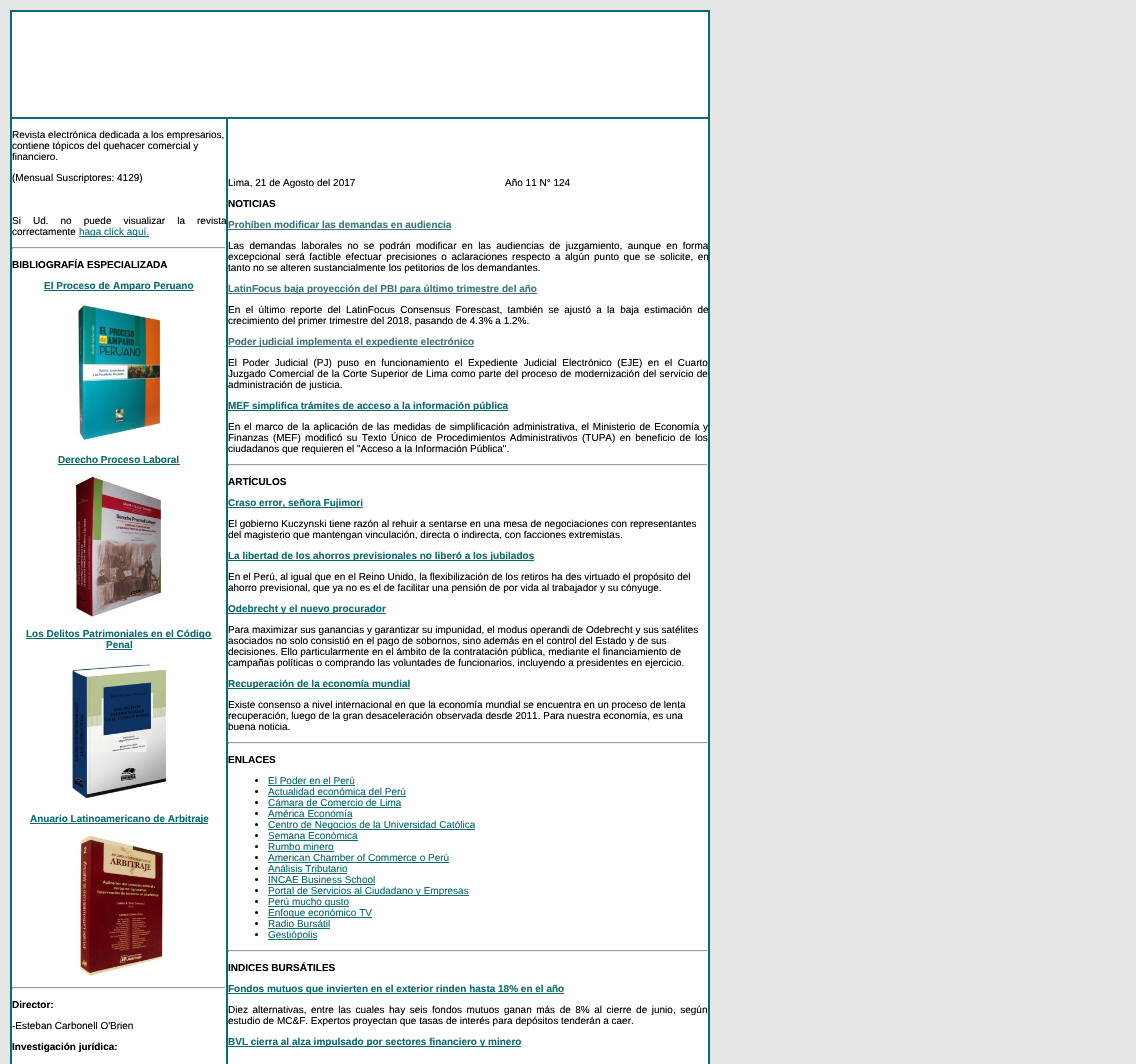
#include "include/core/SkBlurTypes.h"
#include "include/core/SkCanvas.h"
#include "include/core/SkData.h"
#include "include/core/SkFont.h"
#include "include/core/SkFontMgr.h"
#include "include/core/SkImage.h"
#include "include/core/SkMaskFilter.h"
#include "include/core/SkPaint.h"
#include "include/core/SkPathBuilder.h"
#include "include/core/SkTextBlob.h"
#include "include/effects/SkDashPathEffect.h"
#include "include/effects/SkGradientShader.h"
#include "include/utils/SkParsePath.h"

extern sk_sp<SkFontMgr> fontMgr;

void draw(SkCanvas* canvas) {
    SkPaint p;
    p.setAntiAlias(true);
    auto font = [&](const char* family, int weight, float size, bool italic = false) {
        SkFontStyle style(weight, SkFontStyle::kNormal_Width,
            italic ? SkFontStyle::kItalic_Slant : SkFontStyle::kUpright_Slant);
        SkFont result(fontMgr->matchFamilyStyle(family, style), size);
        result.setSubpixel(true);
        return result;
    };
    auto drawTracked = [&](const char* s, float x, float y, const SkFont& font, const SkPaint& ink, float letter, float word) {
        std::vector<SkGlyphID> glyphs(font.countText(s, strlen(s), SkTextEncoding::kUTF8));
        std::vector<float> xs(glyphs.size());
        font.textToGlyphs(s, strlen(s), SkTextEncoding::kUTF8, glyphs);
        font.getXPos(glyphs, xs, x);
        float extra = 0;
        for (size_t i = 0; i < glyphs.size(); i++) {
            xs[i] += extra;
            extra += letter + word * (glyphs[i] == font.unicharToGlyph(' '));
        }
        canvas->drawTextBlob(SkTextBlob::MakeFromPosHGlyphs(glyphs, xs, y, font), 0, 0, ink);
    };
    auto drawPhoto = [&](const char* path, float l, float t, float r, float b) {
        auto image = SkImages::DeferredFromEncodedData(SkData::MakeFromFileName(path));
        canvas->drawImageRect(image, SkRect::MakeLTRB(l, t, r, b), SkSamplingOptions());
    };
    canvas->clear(0xFFE6E6E6);
    p.setStyle(SkPaint::kStroke_Style);
    p.setStrokeWidth(1);
    p.setColor(0xFF0C6A72);
    canvas->drawRect(SkRect::MakeLTRB(10.5f, 10.5f, 709.5f, 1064.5f), p);
    p.setStyle(SkPaint::kFill_Style);
    p.setColor(0xFFFFFFFF);
    canvas->drawRect(SkRect::MakeLTRB(11.5f, 11.5f, 708.5f, 117.5f), p);
    p.setStyle(SkPaint::kStroke_Style);
    p.setColor(0xFF0C6A72);
    canvas->drawRect(SkRect::MakeLTRB(11.5f, 11.5f, 708.5f, 117.5f), p);
    p.setStyle(SkPaint::kFill_Style);
    p.setColor(0xFFFFFFFF);
    canvas->drawRect(SkRect::MakeLTRB(11.5f, 118.5f, 226.5f, 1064.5f), p);
    p.setStyle(SkPaint::kStroke_Style);
    p.setColor(0xFF0C6A72);
    canvas->drawRect(SkRect::MakeLTRB(11.5f, 118.5f, 226.5f, 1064.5f), p);
    auto font1 = font("Liberation Sans", 400, 10);
    p.setStyle(SkPaint::kFill_Style);
    p.setColor(0xFF000000);
    {
        const struct { const char* s; float x, y; } items[] = {
            {"Revista electrónica dedicada a los empresarios,", 12, 138},
            {"contiene tópicos del quehacer comercial y", 12, 149},
            {"financiero.", 12, 160},
            {"(Mensual Suscriptores: 4129)", 12, 181},
        };
        for (auto [s, x, y] : items) {
            canvas->drawString(s, x, y, font1, p);
        }
    }
    drawTracked("Si Ud. no puede visualizar la revista", 12, 224, font1, p, 0, 9.25f);
    canvas->drawString("correctamente", 12, 235, font1, p);
    p.setColor(0xFF0C6A72);
    canvas->drawRect(SkRect::MakeLTRB(79, 236, 149, 237), p);
    canvas->drawString("haga clíck aquí.", 79, 235, font1, p);
    {
        const struct { float l, t, r, b; SkColor color; } items[] = {
            {12, 247, 226, 248, 0xFF9F9F9F},
            {225, 247, 226, 249, 0xFFEEEEEE},
            {12, 248, 226, 249, 0xFFEEEEEE},
            {12, 247, 13, 249, 0xFF9F9F9F},
        };
        for (auto [l, t, r, b, color] : items) {
            p.setColor(color);
            canvas->drawRect(SkRect::MakeLTRB(l, t, r, b), p);
        }
    }
    auto font2 = font("Liberation Sans", 700, 10);
    p.setColor(0xFF000000);
    canvas->drawString("BIBLIOGRAFÍA ESPECIALIZADA", 12, 268, font2, p);
    p.setColor(0xFF0C6A72);
    canvas->drawRect(SkRect::MakeLTRB(44, 290, 194, 291), p);
    canvas->drawString("El Proceso de Amparo Peruano", 44, 289, font2, p);
    drawPhoto("media/1.png", 76, 302, 162, 442);
    canvas->drawString("Derecho Proceso Laboral", 58, 463, font2, p);
    canvas->drawRect(SkRect::MakeLTRB(58, 464, 180, 465), p);
    drawPhoto("media/2.png", 72, 475, 162, 618);
    canvas->drawRect(SkRect::MakeLTRB(26, 638, 212, 639), p);
    canvas->drawString("Los Delitos Patrimoniales en el Código", 26, 637, font2, p);
    canvas->drawString("Penal", 106, 648, font2, p);
    canvas->drawRect(SkRect::MakeLTRB(106, 649, 132, 650), p);
    drawPhoto("media/3.png", 69, 660, 171, 799);
    canvas->drawRect(SkRect::MakeLTRB(30, 823, 208, 824), p);
    canvas->drawString("Anuario Latinoamericano de Arbitraje", 30, 822, font2, p);
    drawPhoto("media/4.png", 74, 834, 165, 977);
    {
        const struct { float l, t, r, b; SkColor color; } items[] = {
            {12, 987, 226, 988, 0xFF9F9F9F},
            {225, 987, 226, 989, 0xFFEEEEEE},
            {12, 988, 226, 989, 0xFFEEEEEE},
            {12, 987, 13, 989, 0xFF9F9F9F},
        };
        for (auto [l, t, r, b, color] : items) {
            p.setColor(color);
            canvas->drawRect(SkRect::MakeLTRB(l, t, r, b), p);
        }
    }
    p.setColor(0xFF000000);
    canvas->drawString("Director:", 12, 1008, font2, p);
    canvas->drawString("-Esteban Carbonell O'Brien", 12, 1029, font1, p);
    canvas->drawString("Investigación jurídica:", 12, 1050, font2, p);
    p.setColor(0xFFFFFFFF);
    canvas->drawRect(SkRect::MakeLTRB(227.5f, 118.5f, 708.5f, 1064.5f), p);
    p.setStyle(SkPaint::kStroke_Style);
    p.setColor(0xFF0C6A72);
    canvas->drawRect(SkRect::MakeLTRB(227.5f, 118.5f, 708.5f, 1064.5f), p);
    p.setStyle(SkPaint::kFill_Style);
    p.setColor(0xFF000000);
    canvas->drawString("Lima, 21 de Agosto del 2017", 228, 186, font1, p);
    canvas->drawString("Año 11 N° 124", 505, 186, font1, p);
    canvas->drawString("NOTICIAS", 228, 207, font2, p);
    p.setColor(0xFF3E7480);
    canvas->drawString("Prohíben modificar las demandas en audiencia", 228, 228, font2, p);
    canvas->drawRect(SkRect::MakeLTRB(228, 229, 451, 230), p);
    p.setColor(0xFF000000);
    drawTracked("Las demandas laborales no se podrán modificar en las audiencias de juzgamiento, aunque en forma", 228, 249, font1, p, 0, 2.5f);
    drawTracked("excepcional será factible efectuar precisiones o aclaraciones respecto a algún punto que se solicite, en", 228, 260, font1, p, 0, 1.75f);
    canvas->drawString("tanto no se alteren sustancialmente los petitorios de los demandantes.", 228, 271, font1, p);
    p.setColor(0xFF3E7480);
    canvas->drawRect(SkRect::MakeLTRB(228, 293, 537, 294), p);
    canvas->drawString("LatinFocus baja proyección del PBI para último trimestre del año", 228, 292, font2, p);
    p.setColor(0xFF000000);
    drawTracked("En el último reporte del LatinFocus Consensus Forescast, también se ajustó a la baja estimación de", 228, 313, font1, p, 0, 2.5f);
    canvas->drawString("crecimiento del primer trimestre del 2018, pasando de 4.3% a 1.2%.", 228, 324, font1, p);
    p.setColor(0xFF3E7480);
    canvas->drawRect(SkRect::MakeLTRB(228, 346, 474, 347), p);
    canvas->drawString("Poder judicial implementa el expediente electrónico", 228, 345, font2, p);
    p.setColor(0xFF000000);
    drawTracked("El Poder Judicial (PJ) puso en funcionamiento el Expediente Judicial Electrónico (EJE) en el Cuarto", 228, 366, font1, p, 0, 2.75f);
    drawTracked("Juzgado Comercial de la Corte Superior de Lima como parte del proceso de modernización del servicio de", 228, 377, font1, p, 0, 0.5f);
    canvas->drawString("administración de justicia.", 228, 388, font1, p);
    p.setColor(0xFF0C6A72);
    canvas->drawRect(SkRect::MakeLTRB(228, 410, 508, 411), p);
    canvas->drawString("MEF simplifica trámites de acceso a la información pública", 228, 409, font2, p);
    p.setColor(0xFF000000);
    drawTracked("En el marco de la aplicación de las medidas de simplificación administrativa, el Ministerio de Economía y", 228, 430, font1, p, 0, 1);
    drawTracked("Finanzas (MEF) modificó su Texto Único de Procedimientos Administrativos (TUPA) en beneficio de los", 228, 441, font1, p, 0, 1.6f);
    canvas->drawString("ciudadanos que requieren el \"Acceso a la Información Pública\".", 228, 452, font1, p);
    {
        const struct { float l, t, r, b; SkColor color; } items[] = {
            {228, 464, 708, 465, 0xFF9F9F9F},
            {707, 464, 708, 466, 0xFFEEEEEE},
            {228, 465, 708, 466, 0xFFEEEEEE},
            {228, 464, 229, 466, 0xFF9F9F9F},
        };
        for (auto [l, t, r, b, color] : items) {
            p.setColor(color);
            canvas->drawRect(SkRect::MakeLTRB(l, t, r, b), p);
        }
    }
    p.setColor(0xFF000000);
    canvas->drawString("ARTÍCULOS", 228, 485, font2, p);
    p.setColor(0xFF0C6A72);
    canvas->drawRect(SkRect::MakeLTRB(228, 507, 363, 508), p);
    canvas->drawString("Craso error, señora Fujimori", 228, 506, font2, p);
    p.setColor(0xFF000000);
    canvas->drawString("El gobierno Kuczynski tiene razón al rehuir a sentarse en una mesa de negociaciones con representantes", 228, 527, font1, p);
    canvas->drawString("del magisterio que mantengan vinculación, directa o indirecta, con facciones extremistas.", 228, 538, font1, p);
    p.setColor(0xFF0C6A72);
    canvas->drawRect(SkRect::MakeLTRB(228, 560, 534, 561), p);
    canvas->drawString("La libertad de los ahorros previsionales no liberó a los jubilados", 228, 559, font2, p);
    p.setColor(0xFF000000);
    canvas->drawString("En el Perú, al igual que en el Reino Unido, la flexibilización de los retiros ha des virtuado el propósito del", 228, 580, font1, p);
    canvas->drawString("ahorro previsional, que ya no es el de facilitar una pensión de por vida al trabajador y su cónyuge.", 228, 591, font1, p);
    p.setColor(0xFF0C6A72);
    canvas->drawRect(SkRect::MakeLTRB(228, 613, 386, 614), p);
    canvas->drawString("Odebrecht y el nuevo procurador", 228, 612, font2, p);
    p.setColor(0xFF000000);
    {
        const struct { const char* s; float x, y; } items[] = {
            {"Para maximizar sus ganancias y garantizar su impunidad, el modus operandi de Odebrecht y sus satélites", 228, 633},
            {"asociados no solo consistió en el pago de sobornos, sino además en el control del Estado y de sus", 228, 644},
            {"decisiones. Ello particularmente en el ámbito de la contratación pública, mediante el financiamiento de", 228, 655},
            {"campañas políticas o comprando las voluntades de funcionarios, incluyendo a presidentes en ejercicio.", 228, 666},
        };
        for (auto [s, x, y] : items) {
            canvas->drawString(s, x, y, font1, p);
        }
    }
    p.setColor(0xFF0C6A72);
    canvas->drawRect(SkRect::MakeLTRB(228, 688, 410, 689), p);
    canvas->drawString("Recuperación de la economía mundial", 228, 687, font2, p);
    p.setColor(0xFF000000);
    {
        const struct { const char* s; float x, y; } items[] = {
            {"Existe consenso a nivel internacional en que la economía mundial se encuentra en un proceso de lenta", 228, 708},
            {"recuperación, luego de la gran desaceleración observada desde 2011. Para nuestra economía, es una", 228, 719},
            {"buena noticia.", 228, 730},
        };
        for (auto [s, x, y] : items) {
            canvas->drawString(s, x, y, font1, p);
        }
    }
    {
        const struct { float l, t, r, b; SkColor color; } items[] = {
            {228, 742, 708, 743, 0xFF9F9F9F},
            {707, 742, 708, 744, 0xFFEEEEEE},
            {228, 743, 708, 744, 0xFFEEEEEE},
            {228, 742, 229, 744, 0xFF9F9F9F},
        };
        for (auto [l, t, r, b, color] : items) {
            p.setColor(color);
            canvas->drawRect(SkRect::MakeLTRB(l, t, r, b), p);
        }
    }
    p.setColor(0xFF000000);
    canvas->drawString("ENLACES", 228, 763, font2, p);
    canvas->drawCircle(256.5f, 780.5f, 1.5f, p);
    p.setColor(0xFF0C6A72);
    canvas->drawString("El Poder en el Perú", 268, 784, font1, p);
    canvas->drawRect(SkRect::MakeLTRB(268, 785, 355, 786), p);
    p.setColor(0xFF000000);
    canvas->drawCircle(256.5f, 791.5f, 1.5f, p);
    p.setColor(0xFF0C6A72);
    canvas->drawString("Actualidad económica del Perú", 268, 795, font1, p);
    canvas->drawRect(SkRect::MakeLTRB(268, 796, 406, 797), p);
    p.setColor(0xFF000000);
    canvas->drawCircle(256.5f, 802.5f, 1.5f, p);
    p.setColor(0xFF0C6A72);
    canvas->drawString("Cámara de Comercio de Lima", 268, 806, font1, p);
    canvas->drawRect(SkRect::MakeLTRB(268, 807, 401, 808), p);
    p.setColor(0xFF000000);
    canvas->drawCircle(256.5f, 813.5f, 1.5f, p);
    p.setColor(0xFF0C6A72);
    canvas->drawString("América Economía", 268, 817, font1, p);
    canvas->drawRect(SkRect::MakeLTRB(268, 818, 352, 819), p);
    p.setColor(0xFF000000);
    canvas->drawCircle(256.5f, 824.5f, 1.5f, p);
    p.setColor(0xFF0C6A72);
    canvas->drawRect(SkRect::MakeLTRB(268, 829, 475, 830), p);
    canvas->drawString("Centro de Negocios de la Universidad Católica", 268, 828, font1, p);
    p.setColor(0xFF000000);
    canvas->drawCircle(256.5f, 835.5f, 1.5f, p);
    p.setColor(0xFF0C6A72);
    canvas->drawString("Semana Económica", 268, 839, font1, p);
    canvas->drawRect(SkRect::MakeLTRB(268, 840, 358, 841), p);
    p.setColor(0xFF000000);
    canvas->drawCircle(256.5f, 846.5f, 1.5f, p);
    p.setColor(0xFF0C6A72);
    canvas->drawString("Rumbo minero", 268, 850, font1, p);
    canvas->drawRect(SkRect::MakeLTRB(268, 851, 334, 852), p);
    p.setColor(0xFF000000);
    canvas->drawCircle(256.5f, 857.5f, 1.5f, p);
    p.setColor(0xFF0C6A72);
    canvas->drawString("American Chamber of Commerce o Perú", 268, 861, font1, p);
    canvas->drawRect(SkRect::MakeLTRB(268, 862, 449, 863), p);
    p.setColor(0xFF000000);
    canvas->drawCircle(256.5f, 868.5f, 1.5f, p);
    p.setColor(0xFF0C6A72);
    canvas->drawString("Análisis Tributario", 268, 872, font1, p);
    canvas->drawRect(SkRect::MakeLTRB(268, 873, 347, 874), p);
    p.setColor(0xFF000000);
    canvas->drawCircle(256.5f, 879.5f, 1.5f, p);
    p.setColor(0xFF0C6A72);
    canvas->drawString("INCAE Business School", 268, 883, font1, p);
    canvas->drawRect(SkRect::MakeLTRB(268, 884, 375, 885), p);
    p.setColor(0xFF000000);
    canvas->drawCircle(256.5f, 890.5f, 1.5f, p);
    p.setColor(0xFF0C6A72);
    canvas->drawRect(SkRect::MakeLTRB(268, 895, 469, 896), p);
    canvas->drawString("Portal de Servicios al Ciudadano y Empresas", 268, 894, font1, p);
    p.setColor(0xFF000000);
    canvas->drawCircle(256.5f, 901.5f, 1.5f, p);
    p.setColor(0xFF0C6A72);
    canvas->drawRect(SkRect::MakeLTRB(268, 906, 349, 907), p);
    canvas->drawString("Perú mucho gusto", 268, 905, font1, p);
    p.setColor(0xFF000000);
    canvas->drawCircle(256.5f, 912.5f, 1.5f, p);
    p.setColor(0xFF0C6A72);
    canvas->drawRect(SkRect::MakeLTRB(268, 917, 372, 918), p);
    canvas->drawString("Enfoque económico TV", 268, 916, font1, p);
    p.setColor(0xFF000000);
    canvas->drawCircle(256.5f, 923.5f, 1.5f, p);
    p.setColor(0xFF0C6A72);
    canvas->drawString("Radio Bursátil", 268, 927, font1, p);
    canvas->drawRect(SkRect::MakeLTRB(268, 928, 330, 929), p);
    p.setColor(0xFF000000);
    canvas->drawCircle(256.5f, 934.5f, 1.5f, p);
    p.setColor(0xFF0C6A72);
    canvas->drawRect(SkRect::MakeLTRB(268, 939, 317, 940), p);
    canvas->drawString("Gestiópolis", 268, 938, font1, p);
    {
        const struct { float l, t, r, b; SkColor color; } items[] = {
            {228, 950, 708, 951, 0xFF9F9F9F},
            {707, 950, 708, 952, 0xFFEEEEEE},
            {228, 951, 708, 952, 0xFFEEEEEE},
            {228, 950, 229, 952, 0xFF9F9F9F},
        };
        for (auto [l, t, r, b, color] : items) {
            p.setColor(color);
            canvas->drawRect(SkRect::MakeLTRB(l, t, r, b), p);
        }
    }
    p.setColor(0xFF000000);
    canvas->drawString("INDICES BURSÁTILES", 228, 971, font2, p);
    p.setColor(0xFF0C6A72);
    canvas->drawRect(SkRect::MakeLTRB(228, 993, 564, 994), p);
    canvas->drawString("Fondos mutuos que invierten en el exterior rinden hasta 18% en el año", 228, 992, font2, p);
    p.setColor(0xFF000000);
    drawTracked("Diez alternativas, entre las cuales hay seis fondos mutuos ganan más de 8% al cierre de junio, según", 228, 1013, font1, p, 0, 1.75f);
    canvas->drawString("estudio de MC&F. Expertos proyectan que tasas de interés para depósitos tenderán a caer.", 228, 1024, font1, p);
    p.setColor(0xFF0C6A72);
    canvas->drawRect(SkRect::MakeLTRB(228, 1046, 521, 1047), p);
    canvas->drawString("BVL cierra al alza impulsado por sectores financiero y minero", 228, 1045, font2, p);
}
